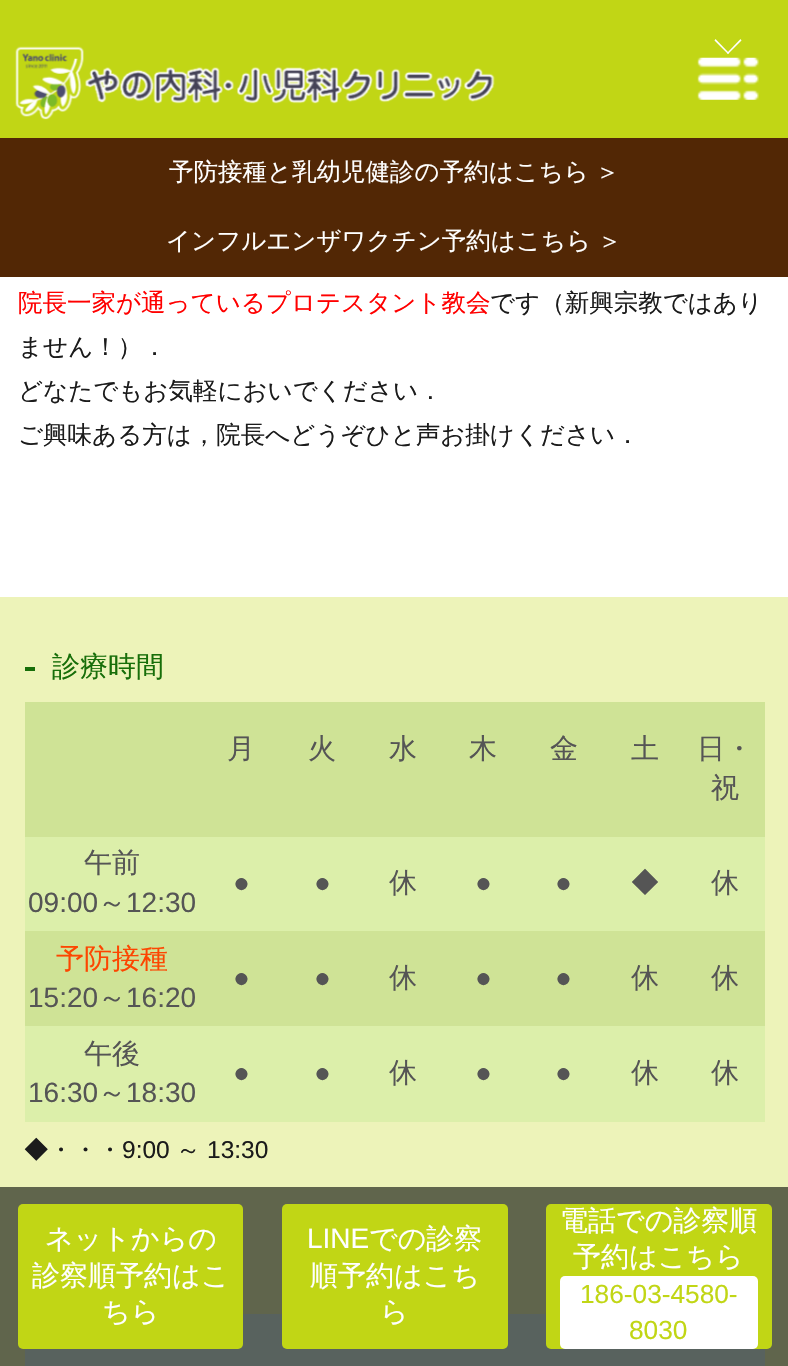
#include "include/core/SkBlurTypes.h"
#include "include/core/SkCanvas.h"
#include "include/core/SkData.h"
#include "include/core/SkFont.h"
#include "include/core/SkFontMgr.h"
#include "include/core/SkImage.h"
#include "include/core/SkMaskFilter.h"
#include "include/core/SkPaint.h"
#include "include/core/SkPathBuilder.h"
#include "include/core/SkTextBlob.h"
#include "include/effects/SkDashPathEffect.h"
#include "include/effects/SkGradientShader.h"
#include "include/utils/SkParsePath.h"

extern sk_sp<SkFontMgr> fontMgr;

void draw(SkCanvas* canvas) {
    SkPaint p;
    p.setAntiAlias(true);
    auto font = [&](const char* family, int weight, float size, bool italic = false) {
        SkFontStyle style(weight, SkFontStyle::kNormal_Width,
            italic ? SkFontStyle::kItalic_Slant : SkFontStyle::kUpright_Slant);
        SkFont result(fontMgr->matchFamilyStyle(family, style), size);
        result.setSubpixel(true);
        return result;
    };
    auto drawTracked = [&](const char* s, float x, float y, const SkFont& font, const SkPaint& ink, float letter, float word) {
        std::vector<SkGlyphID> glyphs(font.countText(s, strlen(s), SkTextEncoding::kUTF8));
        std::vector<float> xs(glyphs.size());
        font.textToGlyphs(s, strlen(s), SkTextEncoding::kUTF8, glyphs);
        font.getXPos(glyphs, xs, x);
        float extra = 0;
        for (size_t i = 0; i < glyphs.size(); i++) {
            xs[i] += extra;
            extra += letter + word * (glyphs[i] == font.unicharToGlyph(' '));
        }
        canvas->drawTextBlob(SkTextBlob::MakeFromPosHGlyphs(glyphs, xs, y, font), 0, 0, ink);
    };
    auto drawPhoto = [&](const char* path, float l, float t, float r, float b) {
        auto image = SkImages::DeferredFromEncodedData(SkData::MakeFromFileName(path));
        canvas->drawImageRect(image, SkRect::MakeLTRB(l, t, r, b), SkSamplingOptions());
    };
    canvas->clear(0xFFFFFFFF);
    p.setColor(0xFFC1D615);
    canvas->drawRect(SkRect::MakeLTRB(0, 0, 788, 138), p);
    drawPhoto("media/1.png", 15, 46, 495, 120);
    p.setColor(0xFFFFFFFF);
    canvas->drawPath(SkPathBuilder().moveTo(740.5f, 39).lineTo(741.5f, 40.5f).lineTo(728, 54).lineTo(727, 53).close().detach(), p);
    canvas->drawPath(SkPathBuilder().moveTo(715.5f, 39).lineTo(729, 53).lineTo(728, 54).lineTo(714.5f, 40.5f).close().detach(), p);
    drawPhoto("media/2.png", 697, 57, 759, 100);
    p.setColor(0xFF522705);
    canvas->drawRect(SkRect::MakeLTRB(0, 138, 788, 277), p);
    auto font1 = font("WenQuanYi Zen Hei", 500, 24.5f);
    p.setColor(0xFFFFFFFF);
    drawTracked("予防接種と乳幼児健診の予約はこちら ＞", 169, 180, font1, p, 0, -1);
    drawTracked("インフルエンザワクチン予約はこちら ＞", 166, 249, font1, p, 0, -1);
    p.setColor(0xFFFF0000);
    canvas->drawString("院長一家が通っているプロテスタント教会", 18, 311, font1, p);
    p.setColor(0xFF1B1B1B);
    {
        const struct { const char* s; float x, y; } items[] = {
            {"です（新興宗教ではあり", 490, 311},
            {"ません！）．", 18, 355},
            {"どなたでもお気軽においでください．", 18, 399},
            {"ご興味ある方は，院長へどうぞひと声お掛けください．", 18, 443},
        };
        for (auto [s, x, y] : items) {
            canvas->drawString(s, x, y, font1, p);
        }
    }
    p.setColor(0xFFEDF3B9);
    canvas->drawRect(SkRect::MakeLTRB(0, 597, 788, 1366), p);
    p.setColor(0xFF176E09);
    canvas->drawRect(SkRect::MakeLTRB(25, 667, 35, 671), p);
    auto font2 = font("WenQuanYi Zen Hei", 500, 28);
    canvas->drawString("診療時間", 52, 676, font2, p);
    p.setColor(0xFFCFE396);
    canvas->drawRect(SkRect::MakeLTRB(25, 702, 765, 837), p);
    p.setColor(0xFF555555);
    {
        const struct { const char* s; float x, y; } items[] = {
            {"月", 227, 758},
            {"火", 308, 758},
            {"水", 389, 758},
            {"木", 469, 758},
            {"金", 550, 758},
            {"土", 631, 758},
            {"日・", 697, 758},
            {"祝", 711, 797},
        };
        for (auto [s, x, y] : items) {
            canvas->drawString(s, x, y, font2, p);
        }
    }
    p.setColor(0xFFDCEFAA);
    canvas->drawRect(SkRect::MakeLTRB(25, 837, 765, 931), p);
    p.setColor(0xFF555555);
    canvas->drawString("午前", 84, 872, font2, p);
    auto font3 = font("Liberation Sans", 400, 28);
    canvas->drawString("09:00", 28, 912, font3, p);
    canvas->drawString("～", 98, 912, font2, p);
    {
        const struct { const char* s; float x, y; } items[] = {
            {"12:30", 126, 912},
            {"●", 233, 892},
            {"●", 314, 892},
        };
        for (auto [s, x, y] : items) {
            canvas->drawString(s, x, y, font3, p);
        }
    }
    canvas->drawString("休", 389, 892, font2, p);
    canvas->drawString("●", 475, 892, font3, p);
    canvas->drawString("●", 555, 892, font3, p);
    canvas->drawString("◆", 631, 892, font2, p);
    canvas->drawString("休", 711, 892, font2, p);
    p.setColor(0xFFCFE396);
    canvas->drawRect(SkRect::MakeLTRB(25, 931, 765, 1026), p);
    p.setColor(0xFFFD4600);
    canvas->drawString("予防接種", 56, 968, font2, p);
    p.setColor(0xFF555555);
    canvas->drawString("15:20", 28, 1007, font3, p);
    canvas->drawString("～", 98, 1007, font2, p);
    {
        const struct { const char* s; float x, y; } items[] = {
            {"16:20", 126, 1007},
            {"●", 233, 987},
            {"●", 314, 987},
        };
        for (auto [s, x, y] : items) {
            canvas->drawString(s, x, y, font3, p);
        }
    }
    canvas->drawString("休", 389, 987, font2, p);
    canvas->drawString("●", 475, 987, font3, p);
    canvas->drawString("●", 555, 987, font3, p);
    canvas->drawString("休", 631, 987, font2, p);
    canvas->drawString("休", 711, 987, font2, p);
    p.setColor(0xFFDCEFAA);
    canvas->drawRect(SkRect::MakeLTRB(25, 1026, 765, 1122), p);
    p.setColor(0xFF555555);
    canvas->drawString("午後", 84, 1063, font2, p);
    canvas->drawString("16:30", 28, 1102, font3, p);
    canvas->drawString("～", 98, 1102, font2, p);
    {
        const struct { const char* s; float x, y; } items[] = {
            {"18:30", 126, 1102},
            {"●", 233, 1082},
            {"●", 314, 1082},
        };
        for (auto [s, x, y] : items) {
            canvas->drawString(s, x, y, font3, p);
        }
    }
    canvas->drawString("休", 389, 1082, font2, p);
    canvas->drawString("●", 475, 1082, font3, p);
    canvas->drawString("●", 555, 1082, font3, p);
    canvas->drawString("休", 631, 1082, font2, p);
    canvas->drawString("休", 711, 1082, font2, p);
    p.setColor(0xFF1B1B1B);
    canvas->drawString("◆・・・", 24, 1158, font1, p);
    auto font4 = font("Liberation Sans", 400, 24.5f);
    canvas->drawString("9:00", 122, 1158, font4, p);
    canvas->drawString("～", 176, 1158, font1, p);
    canvas->drawString("13:30", 207, 1158, font4, p);
    p.setColor(0xFFD3EBF5);
    canvas->drawRect(SkRect::MakeLTRB(25, 1314, 765, 1366), p);
    p.setColor(0xB323281E);
    canvas->drawRect(SkRect::MakeLTRB(0, 1187, 788, 1366), p);
    p.setColor(0xFFC1D615);
    canvas->drawRoundRect(SkRect::MakeLTRB(18, 1204, 243, 1349), 5, 5, p);
    p.setColor(0xFFFFFFFF);
    {
        const struct { const char* s; float x, y; } items[] = {
            {"ネットからの", 45, 1248},
            {"診察順予約はこ", 32, 1285},
            {"ちら", 102, 1321},
        };
        for (auto [s, x, y] : items) {
            canvas->drawString(s, x, y, font2, p);
        }
    }
    p.setColor(0xFFC1D615);
    canvas->drawRoundRect(SkRect::MakeLTRB(282, 1204, 508, 1349), 5, 5, p);
    p.setColor(0xFFFFFFFF);
    canvas->drawString("LINE", 307, 1248, font3, p);
    {
        const struct { const char* s; float x, y; } items[] = {
            {"での診察", 369, 1248},
            {"順予約はこち", 310, 1285},
            {"ら", 380, 1321},
        };
        for (auto [s, x, y] : items) {
            canvas->drawString(s, x, y, font2, p);
        }
    }
    p.setColor(0xFFC1D615);
    canvas->drawRoundRect(SkRect::MakeLTRB(546, 1204, 772, 1349), 5, 5, p);
    p.setColor(0xFFFFFFFF);
    canvas->drawString("電話での診察順", 560, 1230, font2, p);
    canvas->drawString("予約はこちら", 573, 1266, font2, p);
    canvas->drawRoundRect(SkRect::MakeLTRB(560, 1276, 758, 1349), 5, 5, p);
    auto font5 = font("Liberation Sans", 400, 26.25f);
    p.setColor(0xFFC1D615);
    canvas->drawString("186-03-4580-", 580, 1303, font5, p);
    canvas->drawString("8030", 629, 1339, font5, p);
}
